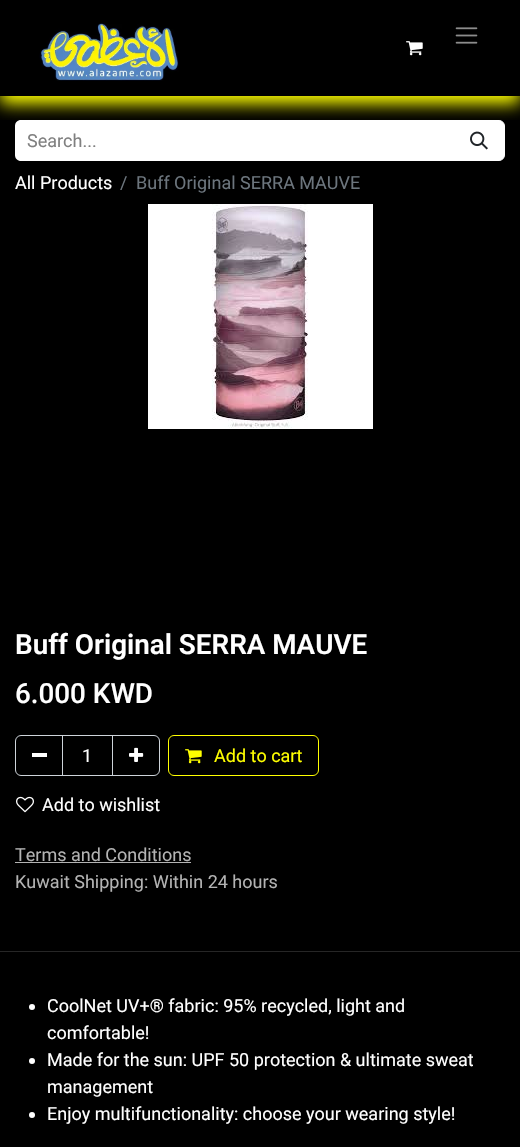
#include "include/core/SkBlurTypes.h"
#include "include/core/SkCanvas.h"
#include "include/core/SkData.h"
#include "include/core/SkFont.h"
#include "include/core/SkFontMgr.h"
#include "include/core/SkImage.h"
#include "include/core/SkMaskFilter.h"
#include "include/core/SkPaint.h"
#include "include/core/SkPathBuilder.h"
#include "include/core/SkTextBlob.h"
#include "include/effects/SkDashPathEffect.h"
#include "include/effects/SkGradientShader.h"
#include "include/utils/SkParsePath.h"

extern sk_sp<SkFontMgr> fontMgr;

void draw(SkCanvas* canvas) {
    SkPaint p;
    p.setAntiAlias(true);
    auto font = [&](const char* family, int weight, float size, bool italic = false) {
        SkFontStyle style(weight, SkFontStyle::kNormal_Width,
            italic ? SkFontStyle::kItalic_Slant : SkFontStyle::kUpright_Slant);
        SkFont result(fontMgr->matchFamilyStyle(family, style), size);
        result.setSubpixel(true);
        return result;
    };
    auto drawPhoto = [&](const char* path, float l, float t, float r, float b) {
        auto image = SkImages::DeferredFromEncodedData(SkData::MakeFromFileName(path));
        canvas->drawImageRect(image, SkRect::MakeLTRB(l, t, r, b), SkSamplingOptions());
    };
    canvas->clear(0xFF000000);
    p.setColor(0xFFFFFFFF);
    canvas->drawPath(SkPathBuilder().moveTo(21, 120).lineTo(454, 120).lineTo(454, 161).lineTo(21, 161).cubicTo(17.5f, 161, 15, 158.5f, 15, 155).lineTo(15, 126).cubicTo(15, 122.5f, 17.5f, 120, 21, 120).close().detach(), p);
    canvas->drawPath(SkPathBuilder().moveTo(453.5f, 120.5f).lineTo(499, 120.5f).cubicTo(502, 120.5f, 504.5f, 123, 504.5f, 126).lineTo(504.5f, 155).cubicTo(504.5f, 158, 502, 160.5f, 499, 160.5f).lineTo(453.5f, 160.5f).close().detach(), p);
    p.setStyle(SkPaint::kStroke_Style);
    p.setStrokeWidth(1);
    canvas->drawPath(SkPathBuilder().moveTo(453.5f, 120.5f).lineTo(499, 120.5f).cubicTo(502, 120.5f, 504.5f, 123, 504.5f, 126).lineTo(504.5f, 155).cubicTo(504.5f, 158, 502, 160.5f, 499, 160.5f).lineTo(453.5f, 160.5f).close().detach(), p);
    canvas->save();
    canvas->clipRect(SkRect::MakeLTRB(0, 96, 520, 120));
    p.setStyle(SkPaint::kFill_Style);
    p.setColor(0xFFFFFF00);
    p.setMaskFilter(SkMaskFilter::MakeBlur(kNormal_SkBlurStyle, 8));
    canvas->drawRect(SkRect::MakeLTRB(0, 8, 520, 104), p);
    p.setMaskFilter(nullptr);
    canvas->restore();
    drawPhoto("media/1.png", 39, 23, 179, 81);
    drawPhoto("media/2.png", 455, 27, 478, 44);
    drawPhoto("media/3.png", 406, 41, 423, 56);
    auto font1 = font("Roboto", 400, 18);
    p.setColor(0xFF808080);
    canvas->drawString("Search...", 27, 147, font1, p);
    drawPhoto("media/4.png", 470, 131, 488, 150);
    p.setColor(0xFFFFFFFF);
    canvas->drawString("All Products", 15, 189, font1, p);
    p.setColor(0xFF6C757D);
    canvas->drawString("/", 120, 189, font1, p);
    canvas->drawString("Buff Original SERRA MAUVE", 136, 189, font1, p);
    drawPhoto("media/5.png", 148, 204, 373, 429);
    auto font2 = font("Roboto", 600, 27.8f);
    p.setColor(0xFFFFFFFF);
    canvas->drawString("Buff Original SERRA MAUVE", 15, 654, font2, p);
    auto font3 = font("Roboto", 500, 27.8f);
    canvas->drawString("6.000 KWD", 15, 703, font3, p);
    p.setStyle(SkPaint::kStroke_Style);
    p.setColor(0xFFCED4DA);
    canvas->drawRect(SkRect::MakeLTRB(62.5f, 735.5f, 112.5f, 775.5f), p);
    canvas->drawPath(SkPathBuilder().moveTo(21, 735.5f).lineTo(62.5f, 735.5f).lineTo(62.5f, 775.5f).lineTo(21, 775.5f).cubicTo(18, 775.5f, 15.5f, 773, 15.5f, 770).lineTo(15.5f, 741).cubicTo(15.5f, 738, 18, 735.5f, 21, 735.5f).close().detach(), p);
    p.setStyle(SkPaint::kFill_Style);
    p.setColor(0xFFFFFFFF);
    canvas->drawRect(SkRect::MakeLTRB(32, 753, 47, 757), p);
    canvas->drawString("1", 82, 762, font1, p);
    p.setStyle(SkPaint::kStroke_Style);
    p.setColor(0xFFCED4DA);
    canvas->drawPath(SkPathBuilder().moveTo(112.5f, 735.5f).lineTo(154, 735.5f).cubicTo(157, 735.5f, 159.5f, 738, 159.5f, 741).lineTo(159.5f, 770).cubicTo(159.5f, 773, 157, 775.5f, 154, 775.5f).lineTo(112.5f, 775.5f).close().detach(), p);
    drawPhoto("media/6.png", 129, 747, 144, 762);
    p.setColor(0xFFFFFF00);
    canvas->drawRoundRect(SkRect::MakeLTRB(168.5f, 735.5f, 318.5f, 775.5f), 5.5f, 5.5f, p);
    drawPhoto("media/7.png", 185, 749, 202, 764);
    p.setStyle(SkPaint::kFill_Style);
    canvas->drawString("Add to cart", 214, 762, font1, p);
    drawPhoto("media/8.png", 16, 796, 34, 813);
    p.setColor(0xFFFFFFFF);
    canvas->drawString("Add to wishlist", 42, 811, font1, p);
    p.setColor(0xFFB3B3B3);
    canvas->drawString("Terms and Conditions", 15, 861, font1, p);
    canvas->drawRect(SkRect::MakeLTRB(15, 862, 191, 863), p);
    canvas->drawString("Kuwait Shipping: Within 24 hours", 15, 888, font1, p);
    p.setColor(0xFF262626);
    canvas->drawRect(SkRect::MakeLTRB(0, 951, 520, 952), p);
    p.setColor(0xFFFFFFFF);
    canvas->drawCircle(32, 1007, 3, p);
    canvas->drawString("CoolNet UV+® fabric: 95% recycled, light and", 47, 1012, font1, p);
    canvas->drawString("comfortable!", 47, 1039, font1, p);
    canvas->drawCircle(32, 1061, 3, p);
    canvas->drawString("Made for the sun: UPF 50 protection & ultimate sweat", 47, 1066, font1, p);
    canvas->drawString("management", 47, 1093, font1, p);
    canvas->drawCircle(32, 1115, 3, p);
    canvas->drawString("Enjoy multifunctionality: choose your wearing style!", 47, 1120, font1, p);
}
